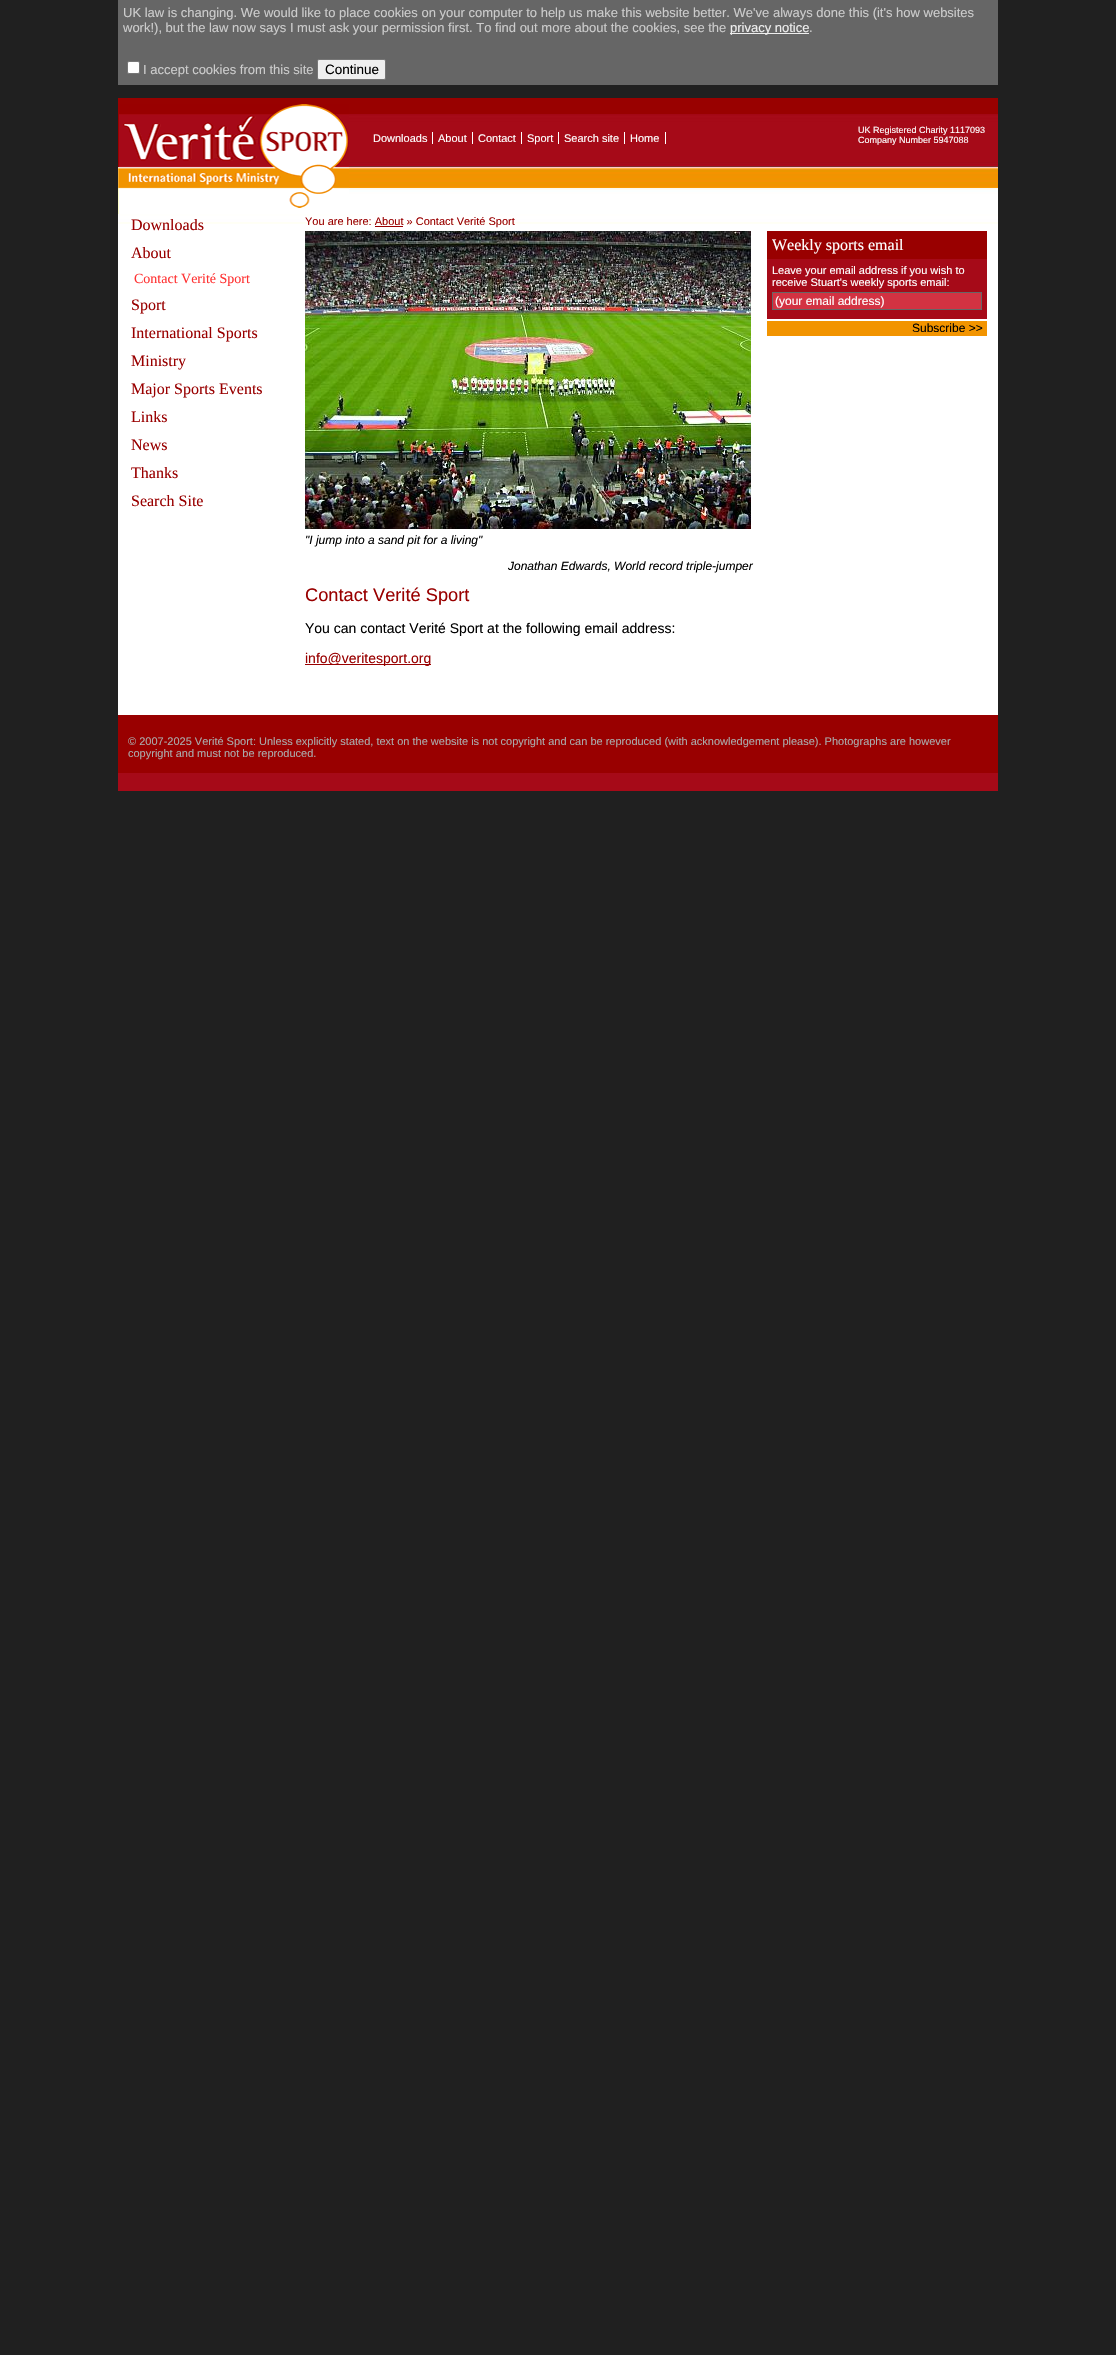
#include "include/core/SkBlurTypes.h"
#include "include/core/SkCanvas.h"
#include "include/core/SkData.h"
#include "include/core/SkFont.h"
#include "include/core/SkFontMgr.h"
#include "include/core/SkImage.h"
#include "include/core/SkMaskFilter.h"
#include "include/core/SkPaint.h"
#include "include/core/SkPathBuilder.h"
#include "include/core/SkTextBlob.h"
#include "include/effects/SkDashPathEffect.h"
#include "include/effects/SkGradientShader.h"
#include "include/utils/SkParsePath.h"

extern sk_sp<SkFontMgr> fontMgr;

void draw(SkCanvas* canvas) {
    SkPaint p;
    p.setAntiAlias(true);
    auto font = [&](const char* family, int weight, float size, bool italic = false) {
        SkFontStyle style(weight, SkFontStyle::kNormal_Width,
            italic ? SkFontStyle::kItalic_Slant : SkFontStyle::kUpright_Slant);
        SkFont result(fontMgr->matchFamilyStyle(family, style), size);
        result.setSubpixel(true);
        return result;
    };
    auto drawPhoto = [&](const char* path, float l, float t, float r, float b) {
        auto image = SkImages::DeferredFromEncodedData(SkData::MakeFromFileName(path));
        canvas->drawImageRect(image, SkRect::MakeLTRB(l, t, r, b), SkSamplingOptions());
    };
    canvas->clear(0xFF202020);
    p.setColor(0xFF666666);
    canvas->drawRect(SkRect::MakeLTRB(118, 0, 998, 85), p);
    auto font1 = font("Liberation Sans", 400, 13);
    p.setColor(0xFFCCCCCC);
    canvas->drawString("UK law is changing. We would like to place cookies on your computer to help us make this website better. We've always done this (it's how websites", 123, 17, font1, p);
    canvas->drawString("work!), but the law now says I must ask your permission first. To find out more about the cookies, see the", 123, 32, font1, p);
    p.setColor(0xFFEEEEEE);
    canvas->drawRect(SkRect::MakeLTRB(730, 33, 809, 34), p);
    canvas->drawString("privacy notice", 730, 32, font1, p);
    p.setColor(0xFFCCCCCC);
    canvas->drawString(".", 809, 32, font1, p);
    p.setColor(0xFFFFFFFF);
    canvas->drawRoundRect(SkRect::MakeLTRB(127.5f, 61.5f, 139.5f, 73.5f), 1.5f, 1.5f, p);
    p.setStyle(SkPaint::kStroke_Style);
    p.setStrokeWidth(1);
    p.setColor(0xFF767676);
    canvas->drawRoundRect(SkRect::MakeLTRB(127.5f, 61.5f, 139.5f, 73.5f), 1.5f, 1.5f, p);
    p.setStyle(SkPaint::kFill_Style);
    p.setColor(0xFFCCCCCC);
    canvas->drawString("I accept cookies from this site", 143, 74, font1, p);
    p.setColor(0xFFEFEFEF);
    canvas->drawRoundRect(SkRect::MakeLTRB(317.5f, 59.5f, 385.5f, 79.5f), 1.5f, 1.5f, p);
    p.setStyle(SkPaint::kStroke_Style);
    p.setColor(0xFF767676);
    canvas->drawRoundRect(SkRect::MakeLTRB(317.5f, 59.5f, 385.5f, 79.5f), 1.5f, 1.5f, p);
    auto font2 = font("Liberation Sans", 400, 13.5f);
    p.setStyle(SkPaint::kFill_Style);
    p.setColor(0xFF000000);
    canvas->drawString("Continue", 325, 74, font2, p);
    p.setColor(0xFFFFFFFF);
    canvas->drawRect(SkRect::MakeLTRB(118, 224, 998, 715), p);
    drawPhoto("media/1.png", 118, 98, 998, 224);
    drawPhoto("media/2.png", 118, 104, 349, 214);
    canvas->drawRect(SkRect::MakeLTRB(432, 132, 433, 144), p);
    auto font3 = font("Liberation Sans", 400, 11);
    canvas->drawString("Downloads", 373, 142, font3, p);
    canvas->drawRect(SkRect::MakeLTRB(472, 132, 473, 144), p);
    canvas->drawString("About", 438, 142, font3, p);
    canvas->drawRect(SkRect::MakeLTRB(521, 132, 522, 144), p);
    canvas->drawString("Contact", 478, 142, font3, p);
    canvas->drawRect(SkRect::MakeLTRB(558, 132, 559, 144), p);
    canvas->drawString("Sport", 527, 142, font3, p);
    canvas->drawRect(SkRect::MakeLTRB(624, 132, 625, 144), p);
    canvas->drawString("Search site", 564, 142, font3, p);
    canvas->drawRect(SkRect::MakeLTRB(665, 132, 666, 144), p);
    canvas->drawString("Home", 630, 142, font3, p);
    auto font4 = font("Liberation Sans", 400, 9);
    canvas->drawString("UK Registered Charity 1117093", 858, 133, font4, p);
    canvas->drawString("Company Number 5947088", 858, 143, font4, p);
    auto font5 = font("Liberation Serif", 400, 16);
    p.setColor(0xFF990000);
    canvas->drawString("Downloads", 131, 230, font5, p);
    canvas->drawString("About", 131, 258, font5, p);
    auto font6 = font("Liberation Serif", 400, 14);
    p.setColor(0xFFFF3333);
    canvas->drawString("Contact Verité Sport", 134, 283, font6, p);
    p.setColor(0xFF990000);
    {
        const struct { const char* s; float x, y; } items[] = {
            {"Sport", 131, 310},
            {"International Sports", 131, 338},
            {"Ministry", 131, 366},
            {"Major Sports Events", 131, 394},
            {"Links", 131, 422},
            {"News", 131, 450},
            {"Thanks", 131, 478},
            {"Search Site", 131, 506},
        };
        for (auto [s, x, y] : items) {
            canvas->drawString(s, x, y, font5, p);
        }
    }
    canvas->drawString("You are here: About » Contact Verité Sport", 305, 225, font3, p);
    canvas->drawRect(SkRect::MakeLTRB(375, 226, 403, 227), p);
    drawPhoto("media/3.png", 305, 231, 751, 529);
    auto font7 = font("Liberation Sans", 400, 12, true);
    p.setColor(0xFF000000);
    canvas->drawString("\"I jump into a sand pit for a living\"", 305, 544, font7, p);
    canvas->drawString("Jonathan Edwards, World record triple-jumper", 508, 570, font7, p);
    auto font8 = font("Liberation Sans", 400, 18.25f);
    p.setColor(0xFF990000);
    canvas->drawString("Contact Verité Sport", 305, 601, font8, p);
    auto font9 = font("Liberation Sans", 400, 14);
    p.setColor(0xFF000000);
    canvas->drawString("You can contact Verité Sport at the following email address:", 305, 633, font9, p);
    p.setColor(0xFF990000);
    canvas->drawRect(SkRect::MakeLTRB(305, 664, 431, 665), p);
    canvas->drawString("info@veritesport.org", 305, 663, font9, p);
    canvas->drawRect(SkRect::MakeLTRB(767, 231, 987, 259), p);
    p.setColor(0xFFFFFFFF);
    canvas->drawString("Weekly sports email", 772, 250, font5, p);
    p.setColor(0xFFA60A18);
    canvas->drawRect(SkRect::MakeLTRB(767, 259, 987, 319), p);
    p.setColor(0xFFFFFFFF);
    canvas->drawString("Leave your email address if you wish to", 772, 274, font3, p);
    canvas->drawString("receive Stuart's weekly sports email:", 772, 286, font3, p);
    p.setColor(0xFFD33242);
    canvas->drawRect(SkRect::MakeLTRB(772.5f, 292.5f, 981.5f, 309.5f), p);
    p.setStyle(SkPaint::kStroke_Style);
    p.setColor(0xFF666666);
    canvas->drawRect(SkRect::MakeLTRB(772.5f, 292.5f, 981.5f, 309.5f), p);
    auto font10 = font("Liberation Sans", 400, 12);
    p.setStyle(SkPaint::kFill_Style);
    p.setColor(0xFFFFFFFF);
    canvas->drawString("(your email address)", 775, 305, font10, p);
    p.setColor(0xFFF29400);
    canvas->drawRect(SkRect::MakeLTRB(767, 321, 987, 336), p);
    p.setColor(0xFF000000);
    canvas->drawString("Subscribe >>", 912, 332, font10, p);
    p.setColor(0xFF990000);
    canvas->drawRect(SkRect::MakeLTRB(118, 715, 998, 773), p);
    p.setColor(0xFFA60A18);
    canvas->drawRect(SkRect::MakeLTRB(118, 773, 998, 791), p);
    p.setColor(0xFFAAAAAA);
    canvas->drawString("© 2007-2025 Verité Sport: Unless explicitly stated, text on the website is not copyright and can be reproduced (with acknowledgement please). Photographs are however", 128, 745, font3, p);
    canvas->drawString("copyright and must not be reproduced.", 128, 757, font3, p);
}
